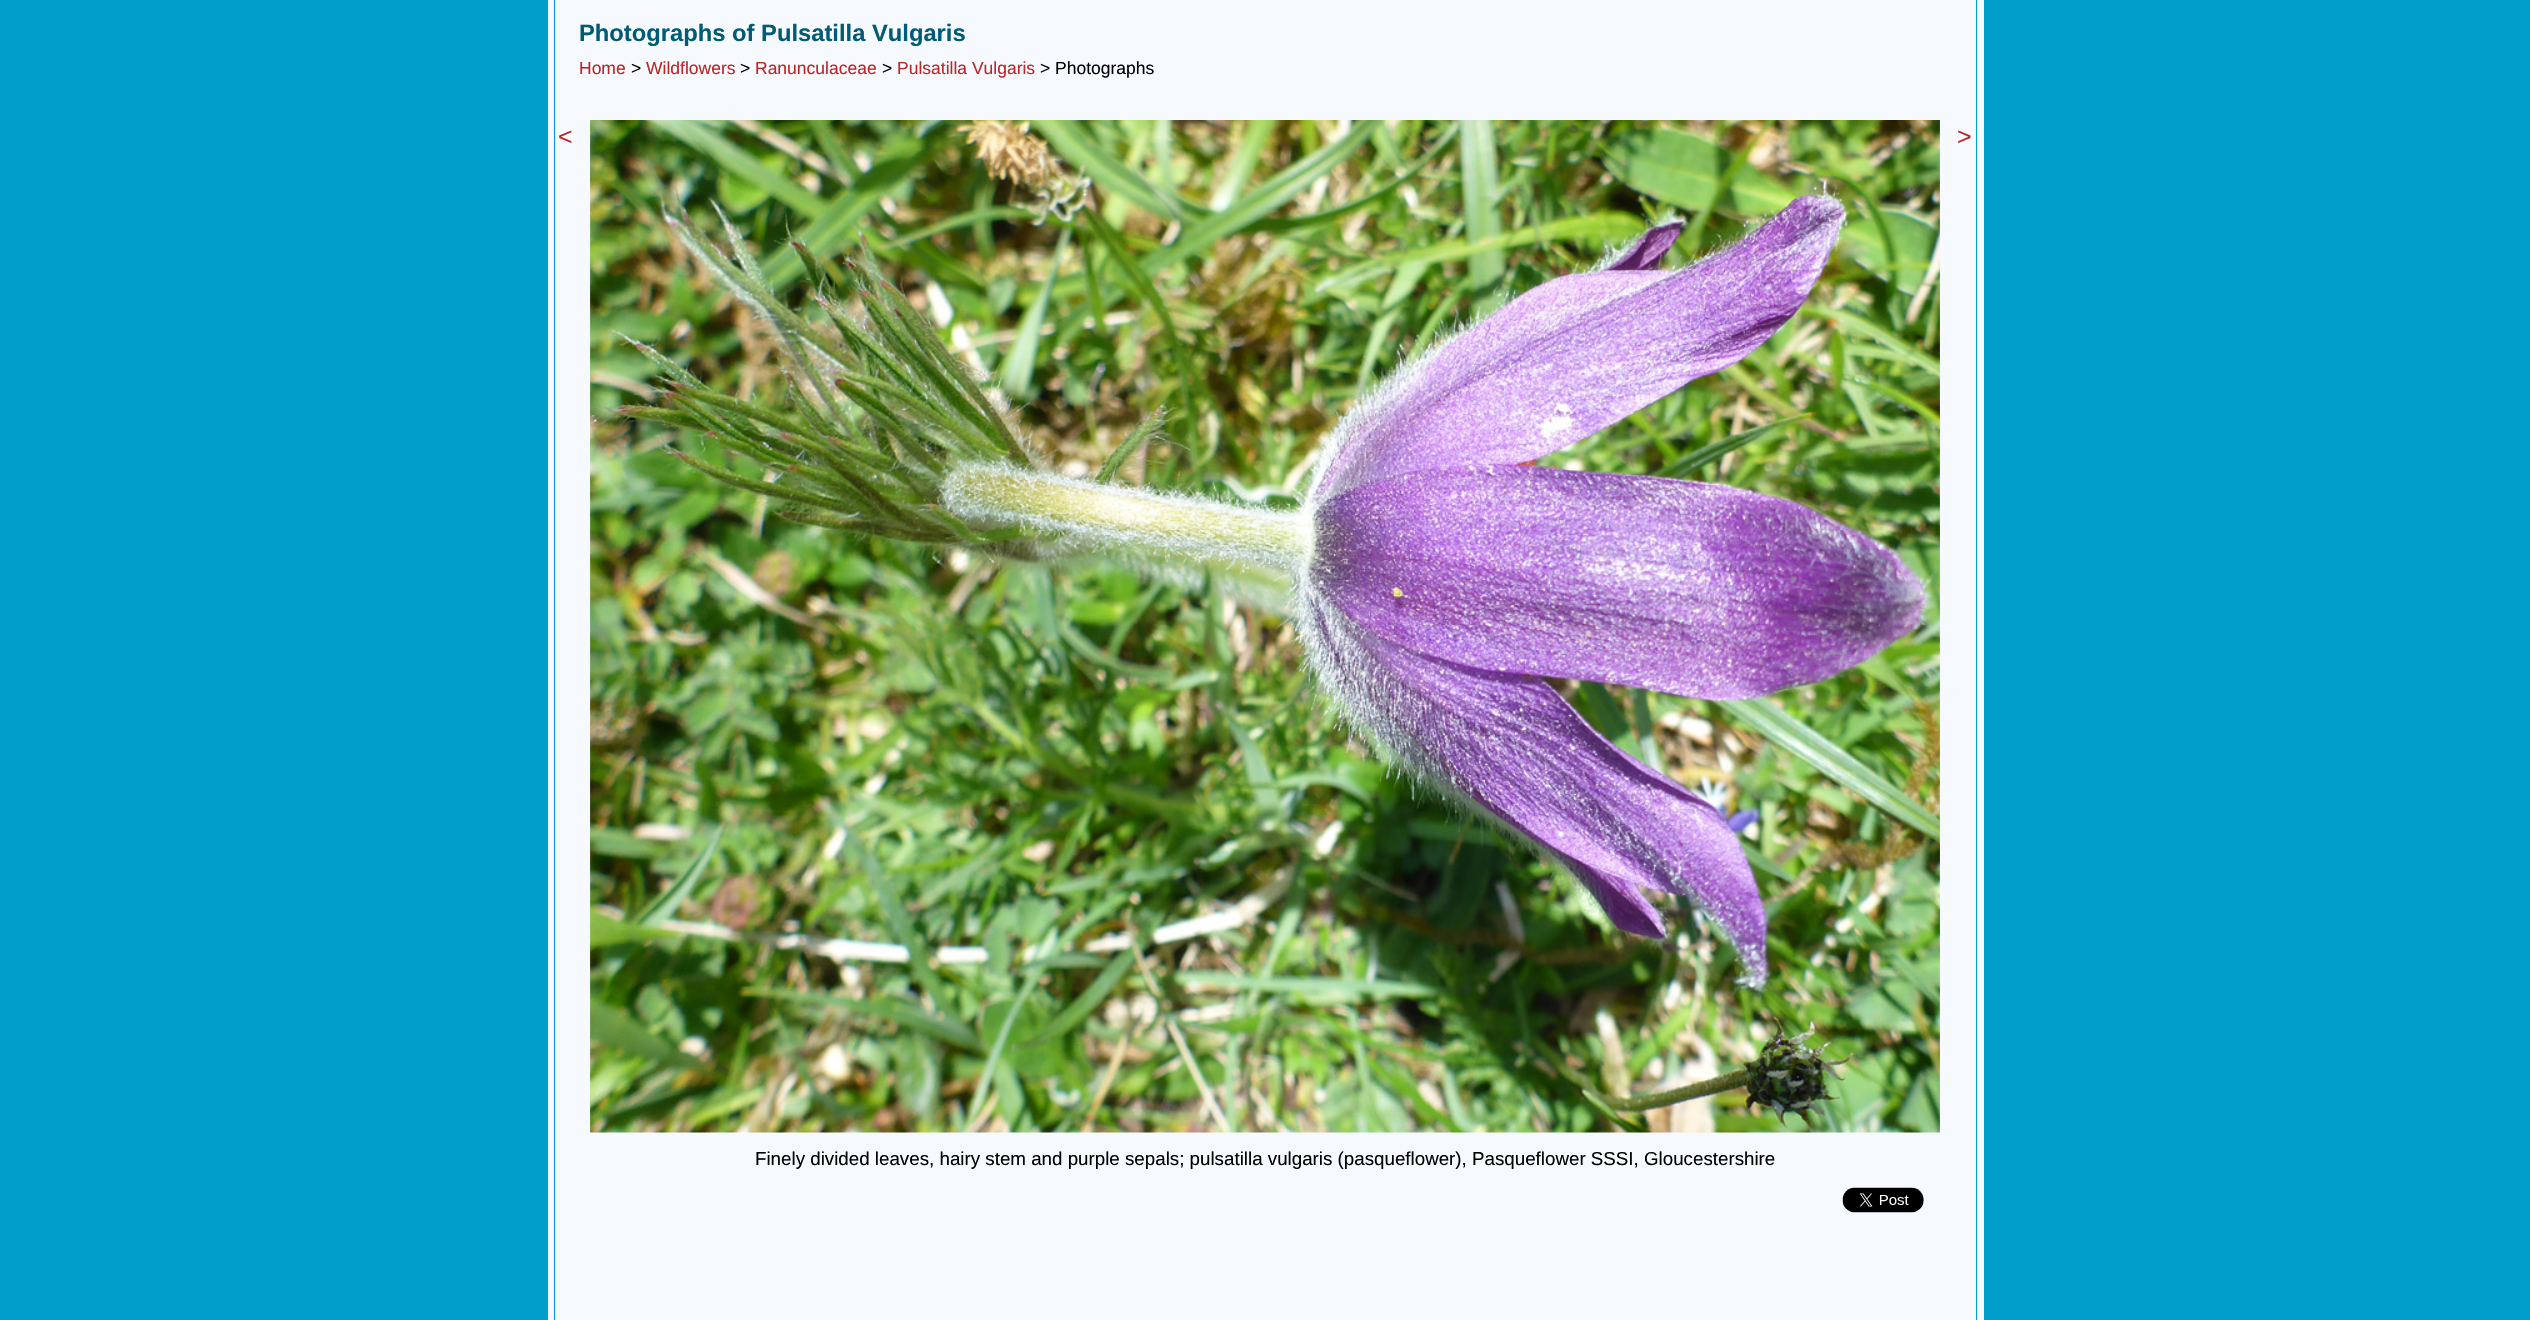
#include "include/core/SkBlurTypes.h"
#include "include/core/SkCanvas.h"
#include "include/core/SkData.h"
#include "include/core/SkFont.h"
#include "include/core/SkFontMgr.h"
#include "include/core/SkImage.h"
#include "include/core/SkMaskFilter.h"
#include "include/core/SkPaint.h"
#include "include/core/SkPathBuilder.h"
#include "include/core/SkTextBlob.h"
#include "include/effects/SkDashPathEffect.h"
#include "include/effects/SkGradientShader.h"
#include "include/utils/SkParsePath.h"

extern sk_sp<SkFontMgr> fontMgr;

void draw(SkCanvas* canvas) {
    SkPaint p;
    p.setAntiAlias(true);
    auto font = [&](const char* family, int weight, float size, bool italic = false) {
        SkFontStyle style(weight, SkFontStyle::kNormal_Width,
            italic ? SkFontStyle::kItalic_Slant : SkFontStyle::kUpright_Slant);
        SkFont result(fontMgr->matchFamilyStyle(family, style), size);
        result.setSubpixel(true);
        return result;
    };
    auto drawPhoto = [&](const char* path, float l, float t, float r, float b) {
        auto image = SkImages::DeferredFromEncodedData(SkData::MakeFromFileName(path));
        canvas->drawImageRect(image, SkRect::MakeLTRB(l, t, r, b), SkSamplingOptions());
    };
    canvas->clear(0xFF009FCB);
    {
        const struct { float l, t, r, b; SkColor color; } items[] = {
            {548, 0, 1984, 1320, 0xFFF6FAFF},
            {1976, 0, 1977, 1320, 0xFF009FCB},
            {554, 0, 555, 1320, 0xFF009FCB},
        };
        for (auto [l, t, r, b, color] : items) {
            p.setColor(color);
            canvas->drawRect(SkRect::MakeLTRB(l, t, r, b), p);
        }
    }
    auto font1 = font("Liberation Sans", 700, 23.75f);
    p.setColor(0xFF005C75);
    canvas->drawString("Photographs of Pulsatilla Vulgaris", 579, 41, font1, p);
    auto font2 = font("Liberation Sans", 400, 17.5f);
    p.setColor(0xFFB92726);
    canvas->drawString("Home", 579, 74, font2, p);
    p.setColor(0xFF000000);
    canvas->drawString(">", 631, 74, font2, p);
    p.setColor(0xFFB92726);
    canvas->drawString("Wildflowers", 646, 74, font2, p);
    p.setColor(0xFF000000);
    canvas->drawString(">", 740, 74, font2, p);
    p.setColor(0xFFB92726);
    canvas->drawString("Ranunculaceae", 755, 74, font2, p);
    p.setColor(0xFF000000);
    canvas->drawString(">", 882, 74, font2, p);
    p.setColor(0xFFB92726);
    canvas->drawString("Pulsatilla Vulgaris", 897, 74, font2, p);
    p.setColor(0xFF000000);
    canvas->drawString("> Photographs", 1040, 74, font2, p);
    auto font3 = font("Liberation Sans", 400, 25);
    p.setColor(0xFFB92726);
    canvas->drawString("<", 558, 145, font3, p);
    canvas->drawString(">", 1957, 145, font3, p);
    drawPhoto("media/1.png", 590, 120, 1940, 1133);
    auto font4 = font("Liberation Sans", 400, 18.75f);
    p.setColor(0xFF000000);
    canvas->drawString("Finely divided leaves, hairy stem and purple sepals; pulsatilla vulgaris (pasqueflower), Pasqueflower SSSI, Gloucestershire", 755, 1165, font4, p);
    drawPhoto("media/2.png", 1842, 1187, 1924, 1213);
}
